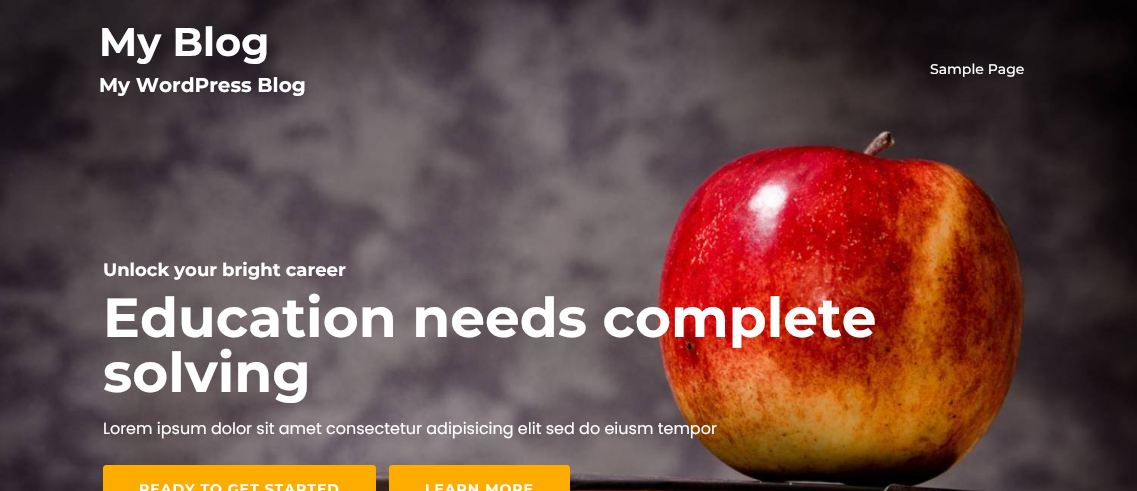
#include "include/core/SkBlurTypes.h"
#include "include/core/SkCanvas.h"
#include "include/core/SkData.h"
#include "include/core/SkFont.h"
#include "include/core/SkFontMgr.h"
#include "include/core/SkImage.h"
#include "include/core/SkMaskFilter.h"
#include "include/core/SkPaint.h"
#include "include/core/SkPathBuilder.h"
#include "include/core/SkTextBlob.h"
#include "include/effects/SkDashPathEffect.h"
#include "include/effects/SkGradientShader.h"
#include "include/utils/SkParsePath.h"

extern sk_sp<SkFontMgr> fontMgr;

void draw(SkCanvas* canvas) {
    SkPaint p;
    p.setAntiAlias(true);
    auto font = [&](const char* family, int weight, float size, bool italic = false) {
        SkFontStyle style(weight, SkFontStyle::kNormal_Width,
            italic ? SkFontStyle::kItalic_Slant : SkFontStyle::kUpright_Slant);
        SkFont result(fontMgr->matchFamilyStyle(family, style), size);
        result.setSubpixel(true);
        return result;
    };
    auto drawTracked = [&](const char* s, float x, float y, const SkFont& font, const SkPaint& ink, float letter, float word) {
        std::vector<SkGlyphID> glyphs(font.countText(s, strlen(s), SkTextEncoding::kUTF8));
        std::vector<float> xs(glyphs.size());
        font.textToGlyphs(s, strlen(s), SkTextEncoding::kUTF8, glyphs);
        font.getXPos(glyphs, xs, x);
        float extra = 0;
        for (size_t i = 0; i < glyphs.size(); i++) {
            xs[i] += extra;
            extra += letter + word * (glyphs[i] == font.unicharToGlyph(' '));
        }
        canvas->drawTextBlob(SkTextBlob::MakeFromPosHGlyphs(glyphs, xs, y, font), 0, 0, ink);
    };
    auto drawPhoto = [&](const char* path, float l, float t, float r, float b) {
        auto image = SkImages::DeferredFromEncodedData(SkData::MakeFromFileName(path));
        canvas->drawImageRect(image, SkRect::MakeLTRB(l, t, r, b), SkSamplingOptions());
    };
    canvas->clear(0xFFFFFFFF);
    drawPhoto("media/1.png", 0, 0, 1137, 491);
    auto font1 = font("Montserrat", 700, 40);
    p.setColor(0xFFFFFFFF);
    canvas->drawString("My Blog", 99, 56, font1, p);
    auto font2 = font("Montserrat", 700, 20);
    canvas->drawString("My WordPress Blog", 99, 92, font2, p);
    auto font3 = font("Montserrat", 500, 14);
    canvas->drawString("Sample Page", 930, 74, font3, p);
    auto font4 = font("Montserrat", 700, 18);
    canvas->drawString("Unlock your bright career", 103, 276, font4, p);
    auto font5 = font("Montserrat", 700, 55);
    canvas->drawString("Education needs complete", 103, 337, font5, p);
    canvas->drawString("solving", 103, 392, font5, p);
    auto font6 = font("Poppins", 400, 16);
    canvas->drawString("Lorem ipsum dolor sit amet consectetur adipisicing elit sed do eiusm tempor", 103, 434, font6, p);
    p.setColor(0xFFFFAC00);
    canvas->drawRoundRect(SkRect::MakeLTRB(103.5f, 465.5f, 375.5f, 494.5f), 2.5f, 2.5f, p);
    p.setStyle(SkPaint::kStroke_Style);
    p.setStrokeWidth(1);
    canvas->drawRoundRect(SkRect::MakeLTRB(103.5f, 465.5f, 375.5f, 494.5f), 2.5f, 2.5f, p);
    auto font7 = font("Montserrat", 700, 14);
    p.setStyle(SkPaint::kFill_Style);
    p.setColor(0xFFFFFFFF);
    drawTracked("READY TO GET STARTED", 139, 494, font7, p, 1, 0);
    p.setColor(0xFFFFAC00);
    canvas->drawRoundRect(SkRect::MakeLTRB(389.5f, 465.5f, 569.5f, 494.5f), 2.5f, 2.5f, p);
    p.setStyle(SkPaint::kStroke_Style);
    canvas->drawRoundRect(SkRect::MakeLTRB(389.5f, 465.5f, 569.5f, 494.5f), 2.5f, 2.5f, p);
    p.setStyle(SkPaint::kFill_Style);
    p.setColor(0xFFFFFFFF);
    drawTracked("LEARN MORE", 425, 494, font7, p, 1, 0);
}
